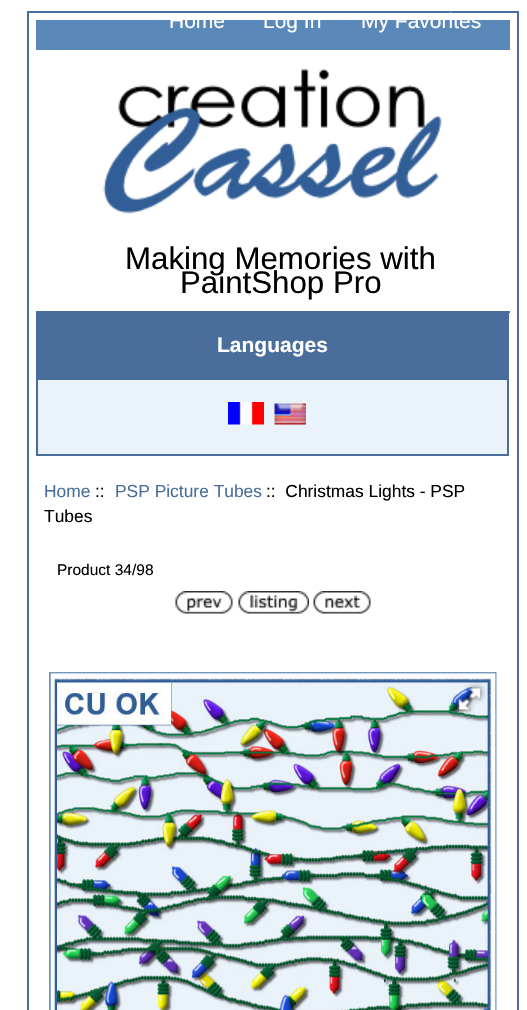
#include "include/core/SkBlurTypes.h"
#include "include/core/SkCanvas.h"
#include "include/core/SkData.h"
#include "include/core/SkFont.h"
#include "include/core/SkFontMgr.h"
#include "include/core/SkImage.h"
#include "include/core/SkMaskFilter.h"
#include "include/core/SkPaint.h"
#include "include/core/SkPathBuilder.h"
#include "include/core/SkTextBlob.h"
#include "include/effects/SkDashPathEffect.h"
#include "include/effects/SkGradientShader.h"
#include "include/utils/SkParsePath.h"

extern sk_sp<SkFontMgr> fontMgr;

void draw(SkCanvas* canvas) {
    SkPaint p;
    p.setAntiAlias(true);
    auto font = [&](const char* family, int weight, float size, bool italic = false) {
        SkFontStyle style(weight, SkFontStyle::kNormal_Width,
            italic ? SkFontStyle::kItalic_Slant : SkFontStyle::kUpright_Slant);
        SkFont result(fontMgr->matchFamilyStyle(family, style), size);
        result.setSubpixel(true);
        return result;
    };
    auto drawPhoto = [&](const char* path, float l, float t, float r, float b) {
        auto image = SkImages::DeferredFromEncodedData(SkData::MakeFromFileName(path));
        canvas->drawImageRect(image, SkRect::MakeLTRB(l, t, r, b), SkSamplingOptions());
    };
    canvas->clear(0xFFFFFFFF);
    p.setStyle(SkPaint::kStroke_Style);
    p.setStrokeWidth(2);
    p.setColor(0xFF496E9C);
    canvas->drawRect(SkRect::MakeLTRB(28, 12, 518, 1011), p);
    p.setStyle(SkPaint::kFill_Style);
    p.setColor(0xFF5A88B9);
    canvas->drawRect(SkRect::MakeLTRB(36, 20, 510, 50), p);
    auto font1 = font("Liberation Sans", 400, 21);
    p.setColor(0xFFFFFFFF);
    {
        const struct { const char* s; float x, y; } items[] = {
            {"Home", 169, 28},
            {"Log In", 263, 28},
            {"My Favorites", 361, 28},
        };
        for (auto [s, x, y] : items) {
            canvas->drawString(s, x, y, font1, p);
        }
    }
    p.setColor(0xFF496E9C);
    canvas->drawRect(SkRect::MakeLTRB(36, 311, 510, 313), p);
    drawPhoto("media/1.png", 103, 68, 442, 214);
    auto font2 = font("Liberation Sans", 400, 31.25f);
    p.setColor(0xFF000000);
    canvas->drawString("Making Memories with", 125, 269, font2, p);
    canvas->drawString("PaintShop Pro", 180, 293, font2, p);
    p.setColor(0xFF496E9C);
    canvas->drawRect(SkRect::MakeLTRB(36, 313, 509, 378), p);
    auto font3 = font("Liberation Sans", 700, 21);
    p.setColor(0xFFFFFFFF);
    canvas->drawString("Languages", 217, 352, font3, p);
    p.setColor(0xFFEAF2FA);
    canvas->drawRect(SkRect::MakeLTRB(37, 379, 508, 455), p);
    p.setStyle(SkPaint::kStroke_Style);
    p.setColor(0xFF496E9C);
    canvas->drawRect(SkRect::MakeLTRB(37, 379, 508, 455), p);
    drawPhoto("media/2.png", 228, 402, 264, 425);
    drawPhoto("media/3.png", 274, 403, 306, 425);
    auto font4 = font("Liberation Sans", 400, 17.4f);
    p.setStyle(SkPaint::kFill_Style);
    canvas->drawString("Home", 44, 497, font4, p);
    p.setColor(0xFF000000);
    canvas->drawString("::", 95, 497, font4, p);
    p.setColor(0xFF496E9C);
    canvas->drawString("PSP Picture Tubes", 115, 497, font4, p);
    p.setColor(0xFF000000);
    canvas->drawString("::  Christmas Lights - PSP", 266, 497, font4, p);
    canvas->drawString("Tubes", 44, 522, font4, p);
    auto font5 = font("Liberation Sans", 400, 15.5f);
    canvas->drawString("Product 34/98", 57, 575, font5, p);
    drawPhoto("media/4.png", 175, 591, 233, 614);
    drawPhoto("media/5.png", 238, 591, 309, 614);
    drawPhoto("media/6.png", 313, 591, 371, 614);
    drawPhoto("media/7.png", 49, 672, 497, 1010);
    drawPhoto("media/8.png", 453, 682, 486, 715);
}
